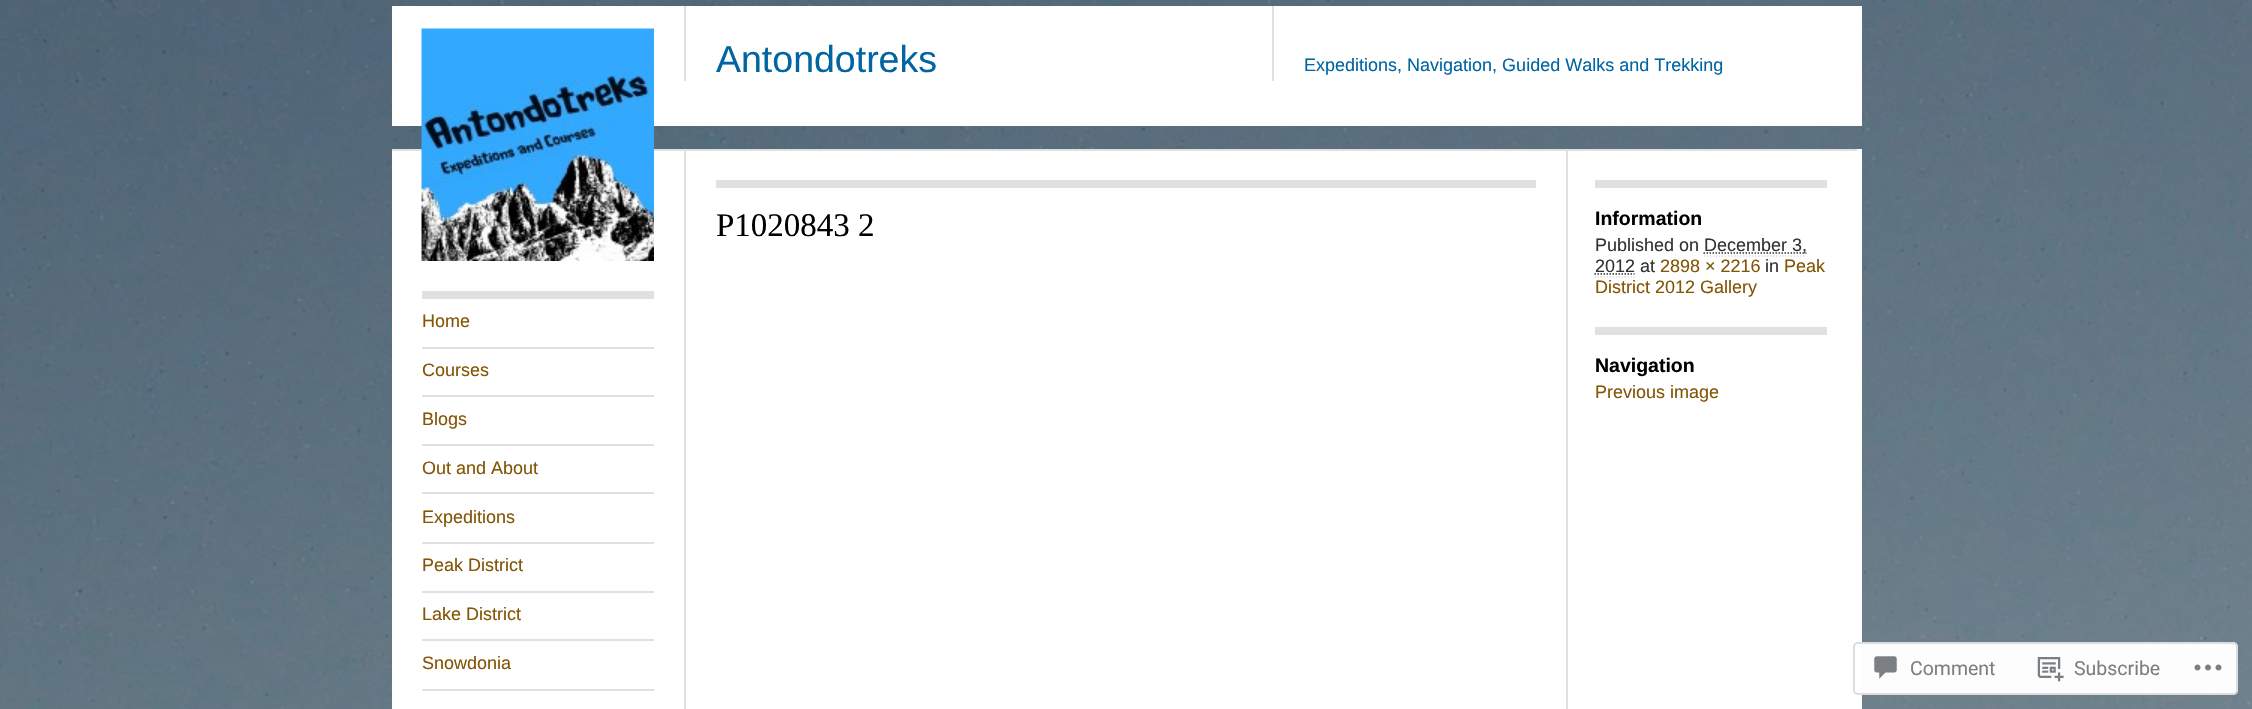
#include "include/core/SkBlurTypes.h"
#include "include/core/SkCanvas.h"
#include "include/core/SkData.h"
#include "include/core/SkFont.h"
#include "include/core/SkFontMgr.h"
#include "include/core/SkImage.h"
#include "include/core/SkMaskFilter.h"
#include "include/core/SkPaint.h"
#include "include/core/SkPathBuilder.h"
#include "include/core/SkTextBlob.h"
#include "include/effects/SkDashPathEffect.h"
#include "include/effects/SkGradientShader.h"
#include "include/utils/SkParsePath.h"

extern sk_sp<SkFontMgr> fontMgr;

void draw(SkCanvas* canvas) {
    SkPaint p;
    p.setAntiAlias(true);
    auto font = [&](const char* family, int weight, float size, bool italic = false) {
        SkFontStyle style(weight, SkFontStyle::kNormal_Width,
            italic ? SkFontStyle::kItalic_Slant : SkFontStyle::kUpright_Slant);
        SkFont result(fontMgr->matchFamilyStyle(family, style), size);
        result.setSubpixel(true);
        return result;
    };
    auto drawPhoto = [&](const char* path, float l, float t, float r, float b) {
        auto image = SkImages::DeferredFromEncodedData(SkData::MakeFromFileName(path));
        canvas->drawImageRect(image, SkRect::MakeLTRB(l, t, r, b), SkSamplingOptions());
    };
    canvas->clear(0xFFFFFFFF);
    drawPhoto("media/1.png", 0, 0, 2252, 709);
    {
        const struct { float l, t, r, b; SkColor color; } items[] = {
            {392, 6, 1862, 126, 0xFFFFFFFF},
            {392, 149, 1862, 709, 0xFFFFFFFF},
            {392, 149, 1568, 151, 0xFFE0E0E0},
        };
        for (auto [l, t, r, b, color] : items) {
            p.setColor(color);
            canvas->drawRect(SkRect::MakeLTRB(l, t, r, b), p);
        }
    }
    drawPhoto("media/2.png", 421, 28, 654, 261);
    canvas->drawRect(SkRect::MakeLTRB(684, 6, 686, 81), p);
    auto font1 = font("Liberation Sans", 400, 37.5f);
    p.setColor(0xFF0065A0);
    canvas->drawString("Antondotreks", 716, 72, font1, p);
    p.setColor(0xFFE0E0E0);
    canvas->drawRect(SkRect::MakeLTRB(1272, 6, 1274, 81), p);
    auto font2 = font("Liberation Sans", 400, 18);
    p.setColor(0xFF0065A0);
    canvas->drawString("Expeditions, Navigation, Guided Walks and Trekking", 1304, 71, font2, p);
    {
        const struct { float l, t, r, b; SkColor color; } items[] = {
            {1566, 149, 1568, 709, 0xFFE0E0E0},
            {684, 149, 686, 709, 0xFFE0E0E0},
            {716, 180, 1536, 188, 0xFFE0E0E0},
        };
        for (auto [l, t, r, b, color] : items) {
            p.setColor(color);
            canvas->drawRect(SkRect::MakeLTRB(l, t, r, b), p);
        }
    }
    auto font3 = font("Liberation Serif", 400, 33);
    p.setColor(0xFF000000);
    canvas->drawString("P1020843 2", 716, 236, font3, p);
    p.setColor(0xFFE0E0E0);
    canvas->drawRect(SkRect::MakeLTRB(1565, 149, 1857, 151), p);
    canvas->drawRect(SkRect::MakeLTRB(1595, 180, 1827, 188), p);
    auto font4 = font("Liberation Sans", 700, 19.5f);
    p.setColor(0xFF000000);
    canvas->drawString("Information", 1595, 225, font4, p);
    p.setColor(0xFF333333);
    canvas->drawString("Published on", 1595, 251, font2, p);
    p.setStyle(SkPaint::kStroke_Style);
    p.setStrokeWidth(1.5f);
    p.setPathEffect(SkDashPathEffect::Make({{1.5f, 1.5f}}, 0));
    canvas->drawPath(SkPathBuilder().moveTo(1703.5f, 253).lineTo(1806.5f, 253).detach(), p);
    p.setPathEffect(nullptr);
    p.setStyle(SkPaint::kFill_Style);
    canvas->drawString("December 3,", 1704, 251, font2, p);
    p.setStyle(SkPaint::kStroke_Style);
    p.setColor(0xFFE0E0E0);
    p.setPathEffect(SkDashPathEffect::Make({{1.5f, 1.5f}}, 0));
    canvas->drawPath(SkPathBuilder().moveTo(1704, 256).lineTo(1806, 256).detach(), p);
    p.setPathEffect(nullptr);
    p.setStyle(SkPaint::kFill_Style);
    p.setColor(0xFF333333);
    canvas->drawString("2012 at", 1595, 272, font2, p);
    p.setStyle(SkPaint::kStroke_Style);
    p.setColor(0xFFE0E0E0);
    p.setPathEffect(SkDashPathEffect::Make({{1.5f, 1.5f}}, 0));
    canvas->drawPath(SkPathBuilder().moveTo(1594.5f, 277).lineTo(1635, 277).detach(), p);
    p.setPathEffect(nullptr);
    p.setColor(0xFF333333);
    p.setPathEffect(SkDashPathEffect::Make({{1.5f, 1.5f}}, 0));
    canvas->drawPath(SkPathBuilder().moveTo(1594.5f, 274).lineTo(1634.5f, 274).detach(), p);
    p.setPathEffect(nullptr);
    p.setStyle(SkPaint::kFill_Style);
    p.setColor(0xFF835504);
    canvas->drawString("2898 × 2216", 1660, 272, font2, p);
    p.setColor(0xFF333333);
    canvas->drawString("in", 1765, 272, font2, p);
    p.setColor(0xFF835504);
    canvas->drawString("Peak", 1784, 272, font2, p);
    canvas->drawString("District 2012 Gallery", 1595, 293, font2, p);
    p.setColor(0xFFE0E0E0);
    canvas->drawRect(SkRect::MakeLTRB(1595, 327, 1827, 335), p);
    p.setColor(0xFF000000);
    canvas->drawString("Navigation", 1595, 372, font4, p);
    p.setColor(0xFF835504);
    canvas->drawString("Previous image", 1595, 398, font2, p);
    p.setColor(0xFFE0E0E0);
    canvas->drawRect(SkRect::MakeLTRB(422, 291, 654, 299), p);
    canvas->drawRect(SkRect::MakeLTRB(422, 347, 654, 349), p);
    p.setColor(0xFF835504);
    canvas->drawString("Home", 422, 327, font2, p);
    p.setColor(0xFFE0E0E0);
    canvas->drawRect(SkRect::MakeLTRB(422, 395, 654, 397), p);
    p.setColor(0xFF835504);
    canvas->drawString("Courses", 422, 376, font2, p);
    p.setColor(0xFFE0E0E0);
    canvas->drawRect(SkRect::MakeLTRB(422, 444, 654, 446), p);
    p.setColor(0xFF835504);
    canvas->drawString("Blogs", 422, 425, font2, p);
    p.setColor(0xFFE0E0E0);
    canvas->drawRect(SkRect::MakeLTRB(422, 492, 654, 494), p);
    p.setColor(0xFF835504);
    canvas->drawString("Out and About", 422, 474, font2, p);
    p.setColor(0xFFE0E0E0);
    canvas->drawRect(SkRect::MakeLTRB(422, 542, 654, 544), p);
    p.setColor(0xFF835504);
    canvas->drawString("Expeditions", 422, 523, font2, p);
    p.setColor(0xFFE0E0E0);
    canvas->drawRect(SkRect::MakeLTRB(422, 591, 654, 593), p);
    p.setColor(0xFF835504);
    canvas->drawString("Peak District", 422, 571, font2, p);
    p.setColor(0xFFE0E0E0);
    canvas->drawRect(SkRect::MakeLTRB(422, 639, 654, 641), p);
    p.setColor(0xFF835504);
    canvas->drawString("Lake District", 422, 620, font2, p);
    p.setColor(0xFFE0E0E0);
    canvas->drawRect(SkRect::MakeLTRB(422, 689, 654, 691), p);
    p.setColor(0xFF835504);
    canvas->drawString("Snowdonia", 422, 669, font2, p);
    p.setColor(0xFAFFFFFF);
    canvas->drawRoundRect(SkRect::MakeLTRB(1853, 642, 2238, 695), 5, 5, p);
    p.setStyle(SkPaint::kStroke_Style);
    p.setStrokeWidth(2);
    p.setColor(0xFADCDCDE);
    canvas->drawRoundRect(SkRect::MakeLTRB(1854, 643, 2237, 694), 4, 4, p);
    drawPhoto("media/3.png", 1874, 656, 1897, 679);
    auto font5 = font("Roboto", 400, 19.5f);
    p.setStyle(SkPaint::kFill_Style);
    p.setColor(0xFF7B7F84);
    canvas->drawString("Comment", 1910, 675, font5, p);
    drawPhoto("media/4.png", 2037, 657, 2064, 682);
    canvas->drawString("Subscribe", 2074, 675, font5, p);
    drawPhoto("media/5.png", 2194, 664, 2222, 671);
}
